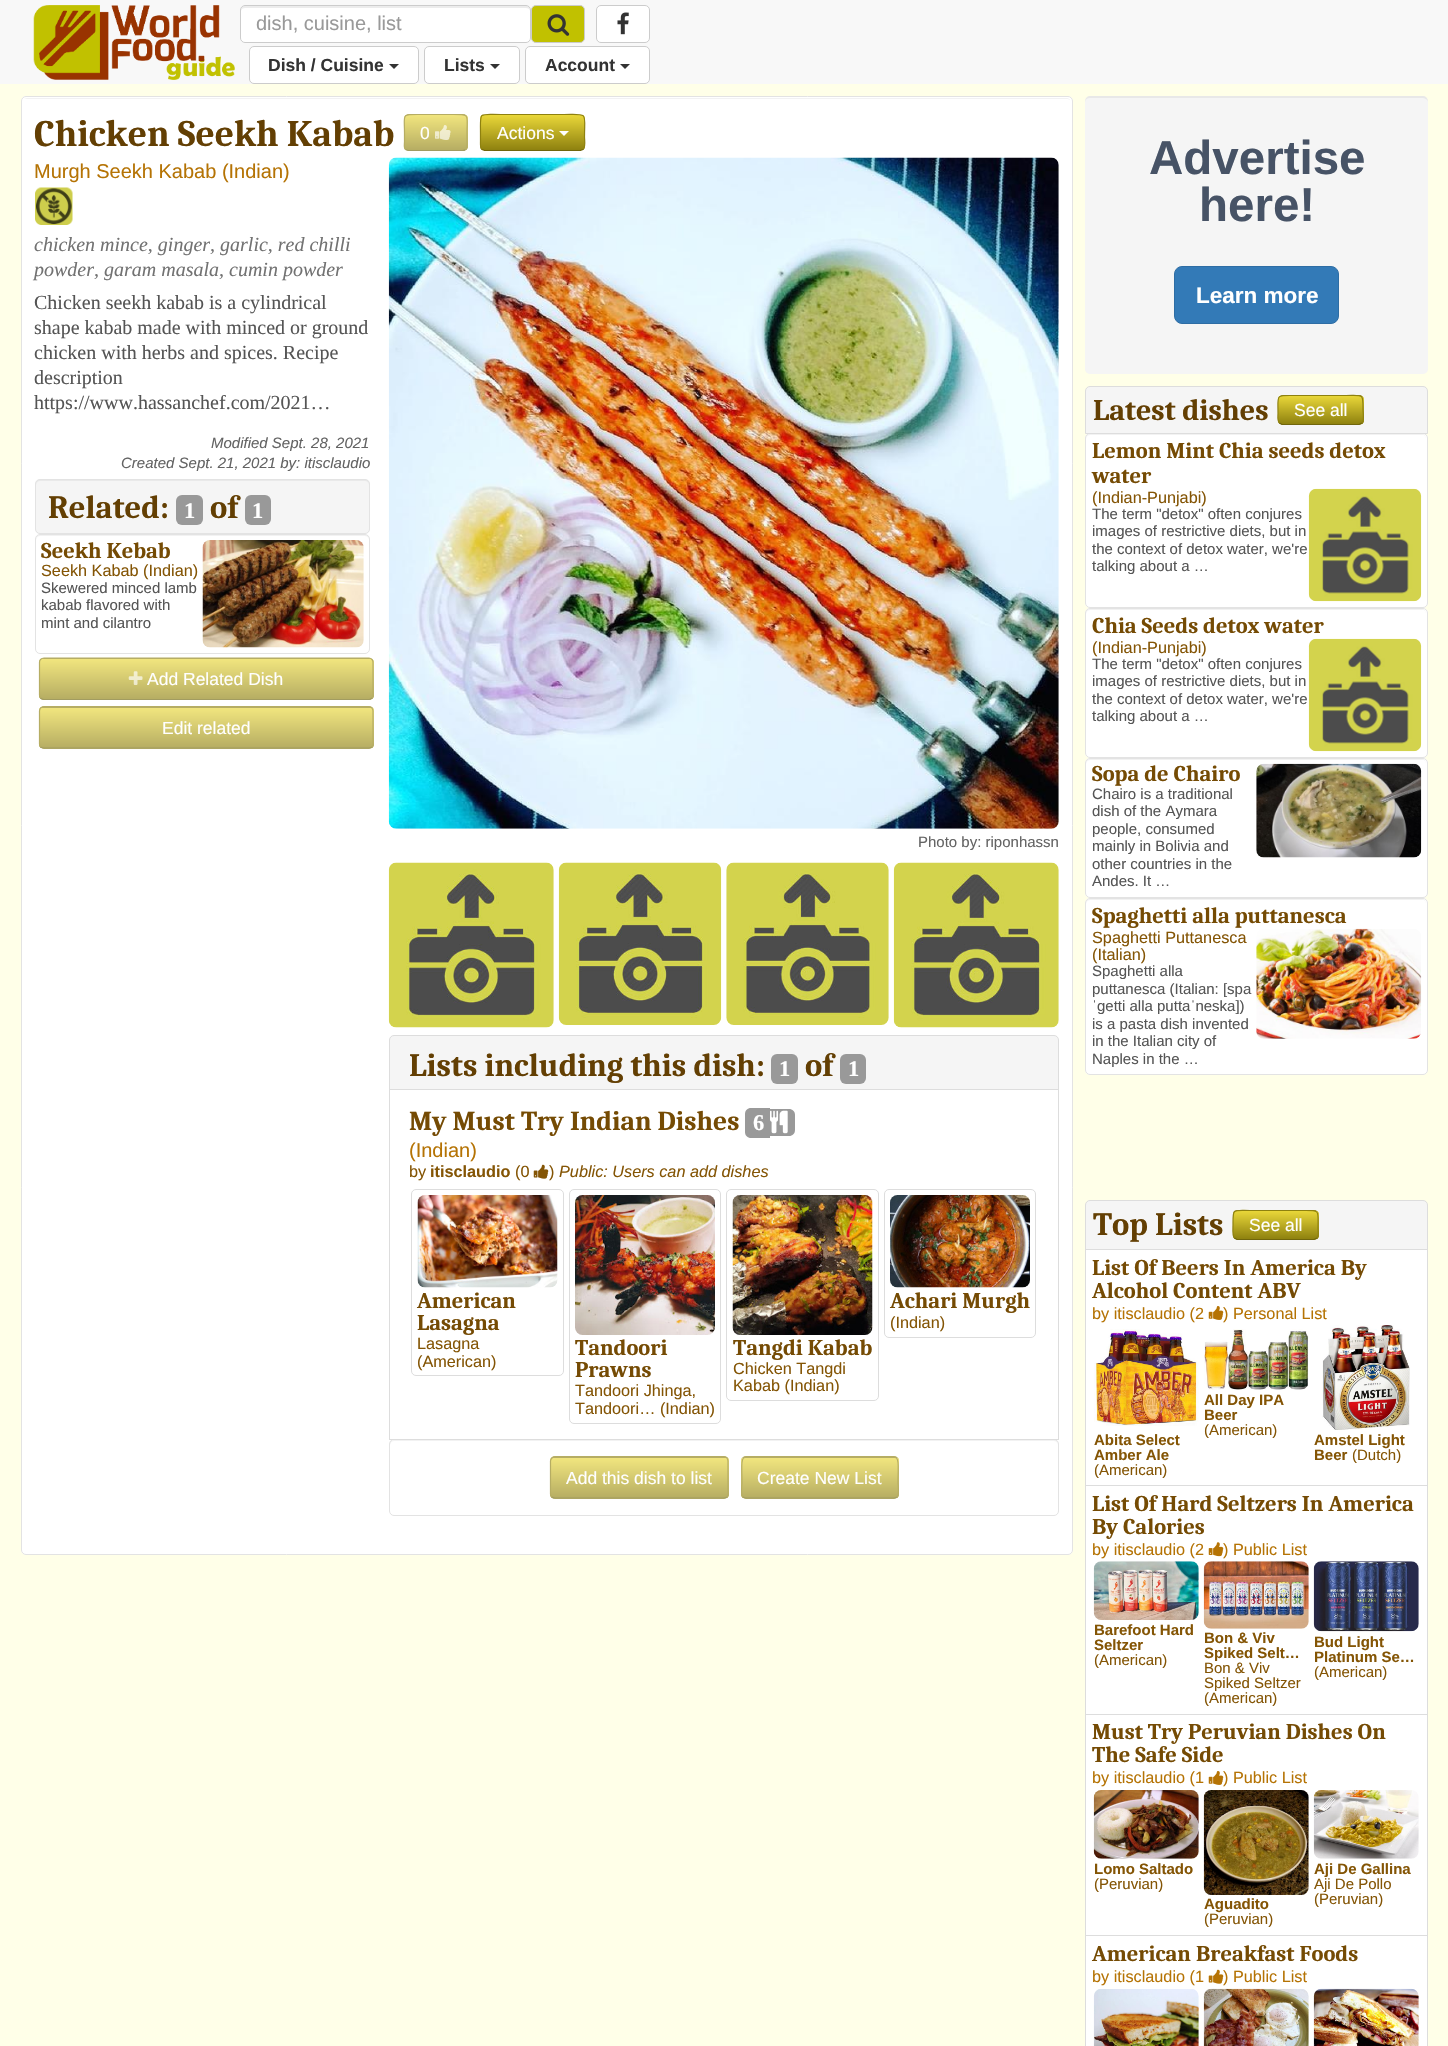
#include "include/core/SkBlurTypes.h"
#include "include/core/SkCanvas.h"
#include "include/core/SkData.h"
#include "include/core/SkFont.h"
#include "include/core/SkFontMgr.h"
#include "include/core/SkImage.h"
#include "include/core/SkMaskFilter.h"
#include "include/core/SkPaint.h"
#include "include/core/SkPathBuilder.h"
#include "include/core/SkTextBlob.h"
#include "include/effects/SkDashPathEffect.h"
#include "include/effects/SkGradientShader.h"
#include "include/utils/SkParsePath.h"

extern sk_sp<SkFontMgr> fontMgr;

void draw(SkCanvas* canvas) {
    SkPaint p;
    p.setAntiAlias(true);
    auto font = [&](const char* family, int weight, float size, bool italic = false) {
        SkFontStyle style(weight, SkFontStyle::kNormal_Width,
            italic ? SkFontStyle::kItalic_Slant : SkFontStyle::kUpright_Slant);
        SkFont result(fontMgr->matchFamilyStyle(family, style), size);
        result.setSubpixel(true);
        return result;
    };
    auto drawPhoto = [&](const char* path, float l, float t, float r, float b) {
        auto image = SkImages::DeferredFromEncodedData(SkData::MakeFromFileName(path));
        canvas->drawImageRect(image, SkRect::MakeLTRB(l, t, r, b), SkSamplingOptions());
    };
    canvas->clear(0xFFFFFFE8);
    p.setColor(0xFFF8F8F8);
    canvas->drawRect(SkRect::MakeLTRB(0, 0, 1448, 84), p);
    drawPhoto("media/1.png", 33, 5, 235, 80);
    p.setColor(0xFFFFFFFF);
    canvas->drawRoundRect(SkRect::MakeLTRB(240, 5, 531, 43), 5, 5, p);
    p.setColor(0xFFECECEC);
    canvas->drawPath(SkPathBuilder().moveTo(245, 8).lineTo(526, 8).cubicTo(528, 8, 530, 9, 530, 11).cubicTo(530, 8, 529, 6, 526, 6).lineTo(245, 6).cubicTo(242, 6, 241, 8, 241, 11).cubicTo(241, 9, 243, 8, 245, 8).close().detach(), p);
    p.setStyle(SkPaint::kStroke_Style);
    p.setStrokeWidth(1);
    p.setColor(0xFFCCCCCC);
    canvas->drawRoundRect(SkRect::MakeLTRB(240.5f, 5.5f, 530.5f, 42.5f), 4.5f, 4.5f, p);
    auto font1 = font("Liberation Sans", 400, 20);
    p.setStyle(SkPaint::kFill_Style);
    p.setColor(0xFF999999);
    canvas->drawString("dish, cuisine, list", 256, 30, font1, p);
    p.setColor(0xFFC1C100);
    canvas->drawRoundRect(SkRect::MakeLTRB(531.5f, 5.5f, 584.5f, 42.5f), 4.5f, 4.5f, p);
    p.setStyle(SkPaint::kStroke_Style);
    p.setColor(0xFFCCCCCC);
    canvas->drawRoundRect(SkRect::MakeLTRB(531.5f, 5.5f, 584.5f, 42.5f), 4.5f, 4.5f, p);
    drawPhoto("media/2.png", 547, 14, 570, 36);
    p.setStyle(SkPaint::kFill_Style);
    p.setColor(0xFFFFFFFF);
    canvas->drawRoundRect(SkRect::MakeLTRB(596.5f, 5.5f, 649.5f, 42.5f), 4.5f, 4.5f, p);
    p.setStyle(SkPaint::kStroke_Style);
    p.setColor(0xFFCCCCCC);
    canvas->drawRoundRect(SkRect::MakeLTRB(596.5f, 5.5f, 649.5f, 42.5f), 4.5f, 4.5f, p);
    drawPhoto("media/3.png", 617, 12, 629, 35);
    p.setStyle(SkPaint::kFill_Style);
    p.setColor(0xFFFFFFFF);
    canvas->drawRoundRect(SkRect::MakeLTRB(249.5f, 46.5f, 418.5f, 83.5f), 4.5f, 4.5f, p);
    p.setStyle(SkPaint::kStroke_Style);
    p.setColor(0xFFCCCCCC);
    canvas->drawRoundRect(SkRect::MakeLTRB(249.5f, 46.5f, 418.5f, 83.5f), 4.5f, 4.5f, p);
    auto font2 = font("Liberation Sans", 700, 17.5f);
    p.setStyle(SkPaint::kFill_Style);
    p.setColor(0xFF333333);
    canvas->drawString("Dish / Cuisine", 268, 71, font2, p);
    canvas->drawPath(SkPathBuilder().moveTo(389, 64).lineTo(399, 64).lineTo(394, 69).close().detach(), p);
    p.setColor(0xFFFFFFFF);
    canvas->drawRoundRect(SkRect::MakeLTRB(424.5f, 46.5f, 519.5f, 83.5f), 4.5f, 4.5f, p);
    p.setStyle(SkPaint::kStroke_Style);
    p.setColor(0xFFCCCCCC);
    canvas->drawRoundRect(SkRect::MakeLTRB(424.5f, 46.5f, 519.5f, 83.5f), 4.5f, 4.5f, p);
    p.setStyle(SkPaint::kFill_Style);
    p.setColor(0xFF333333);
    canvas->drawString("Lists", 444, 71, font2, p);
    canvas->drawPath(SkPathBuilder().moveTo(490, 64).lineTo(500, 64).lineTo(495, 69).close().detach(), p);
    p.setColor(0xFFFFFFFF);
    canvas->drawRoundRect(SkRect::MakeLTRB(525.5f, 46.5f, 649.5f, 83.5f), 4.5f, 4.5f, p);
    p.setStyle(SkPaint::kStroke_Style);
    p.setColor(0xFFCCCCCC);
    canvas->drawRoundRect(SkRect::MakeLTRB(525.5f, 46.5f, 649.5f, 83.5f), 4.5f, 4.5f, p);
    p.setStyle(SkPaint::kFill_Style);
    p.setColor(0xFF333333);
    canvas->drawString("Account", 545, 71, font2, p);
    canvas->drawPath(SkPathBuilder().moveTo(620, 64).lineTo(630, 64).lineTo(625, 69).close().detach(), p);
    p.setColor(0xFFFFFFFF);
    canvas->drawRoundRect(SkRect::MakeLTRB(21, 96, 1073, 1555), 5, 5, p);
    p.setColor(0xFFF2F2F2);
    canvas->drawPath(SkPathBuilder().moveTo(26, 99).lineTo(1068, 99).lineTo(1070, 100).cubicTo(1070, 99, 1068, 98, 1067, 98).lineTo(27, 98).cubicTo(26, 98, 25, 99, 24, 99).close().detach(), p);
    p.setStyle(SkPaint::kStroke_Style);
    p.setColor(0xFFE3E3E3);
    canvas->drawRoundRect(SkRect::MakeLTRB(21.5f, 96.5f, 1072.5f, 1554.5f), 4.5f, 4.5f, p);
    auto font3 = font("Caladea", 700, 37.5f);
    p.setStyle(SkPaint::kFill_Style);
    p.setColor(0xFF633F03);
    canvas->drawString("Chicken Seekh Kabab", 34, 146, font3, p);
    p.setColor(0xFFB6AE64);
    canvas->drawRoundRect(SkRect::MakeLTRB(404, 114, 468, 151), 5, 5, p);
    canvas->save();
    canvas->clipPath(SkPathBuilder().moveTo(409, 114).lineTo(463, 114).cubicTo(466, 114, 468, 116, 468, 119).lineTo(468, 146).cubicTo(468, 149, 466, 151, 463, 151).lineTo(409, 151).cubicTo(406, 151, 404, 149, 404, 146).lineTo(404, 119).cubicTo(404, 116, 406, 114, 409, 114).close().detach(), true);
    {
        const SkColor colors[] = {0xFFF1E57E, 0xFFB6AD63};
        const float stops[] = {0, 1};
        const SkPoint ends[] = {{436, 115}, {436, 150}};
        p.setShader(SkGradientShader::MakeLinear(ends, colors, stops, 2, SkTileMode::kClamp));
        p.setAlpha(255);
    }
    canvas->drawRect(SkRect::MakeLTRB(404, 115, 468, 150), p);
    canvas->restore();
    p.setStyle(SkPaint::kStroke_Style);
    p.setStrokeWidth(1.2f);
    p.setShader(nullptr);
    p.setColor(0xFFA29C61);
    canvas->drawPath(SkPathBuilder().moveTo(465.5f, 149.5f).cubicTo(465, 150, 463.5f, 150.5f, 462.5f, 150.5f).lineTo(409, 150.5f).cubicTo(407.5f, 150.5f, 406.5f, 150, 405.5f, 149.5f).detach(), p);
    p.setColor(0xFFB6AD63);
    canvas->drawPath(SkPathBuilder().moveTo(405.5f, 149.5f).cubicTo(403.5f, 147.5f, 404.5f, 144, 404.5f, 141.5f).lineTo(404.5f, 132.5f).cubicTo(404.5f, 114.5f, 401, 114.5f, 417.5f, 114.5f).lineTo(453.5f, 114.5f).cubicTo(470.5f, 114.5f, 467, 114.5f, 467, 132.5f).lineTo(467, 141.5f).cubicTo(467, 144, 467.5f, 147.5f, 465.5f, 149.5f).detach(), p);
    auto font4 = font("Liberation Sans", 400, 17.5f);
    p.setStyle(SkPaint::kFill_Style);
    p.setColor(0xFFFFFFFF);
    canvas->drawString("0", 420, 139, font4, p);
    drawPhoto("media/4.png", 435, 125, 451, 140);
    canvas->save();
    canvas->clipPath(SkPathBuilder().moveTo(485, 114).lineTo(580, 114).cubicTo(583, 114, 585, 116, 585, 119).lineTo(585, 146).cubicTo(585, 149, 583, 151, 580, 151).lineTo(485, 151).cubicTo(482, 151, 480, 149, 480, 146).lineTo(480, 119).cubicTo(480, 116, 482, 114, 485, 114).close().detach(), true);
    {
        const SkColor colors[] = {0xFFE9D739, 0xFF8E810F};
        const float stops[] = {0, 1};
        const SkPoint ends[] = {{533, 115}, {533, 150}};
        p.setShader(SkGradientShader::MakeLinear(ends, colors, stops, 2, SkTileMode::kClamp));
        p.setAlpha(255);
    }
    canvas->drawRect(SkRect::MakeLTRB(480, 115, 585, 150), p);
    canvas->restore();
    p.setStyle(SkPaint::kStroke_Style);
    p.setShader(nullptr);
    p.setColor(0xFF70660C);
    canvas->drawPath(SkPathBuilder().moveTo(583, 149.5f).lineTo(580.5f, 150.5f).lineTo(484.5f, 150.5f).lineTo(482, 149.5f).detach(), p);
    p.setColor(0xFF8E810F);
    canvas->drawPath(SkPathBuilder().moveTo(482, 149.5f).cubicTo(480, 147.5f, 480.5f, 144, 480.5f, 141.5f).lineTo(480.5f, 132.5f).cubicTo(480.5f, 111, 478, 114.5f, 501, 114.5f).lineTo(564, 114.5f).cubicTo(589, 114.5f, 584.5f, 111.5f, 584.5f, 137).cubicTo(584.5f, 140, 586, 146.5f, 583, 149.5f).detach(), p);
    p.setStyle(SkPaint::kFill_Style);
    p.setColor(0xFFFFFFFF);
    canvas->drawString("Actions", 497, 139, font4, p);
    canvas->drawPath(SkPathBuilder().moveTo(559, 131).lineTo(569, 131).lineTo(564, 136).close().detach(), p);
    p.setColor(0xFFB57304);
    canvas->drawString("Murgh Seekh Kabab (Indian)", 34, 178, font1, p);
    drawPhoto("media/5.png", 35, 187, 73, 225);
    auto font5 = font("Liberation Serif", 400, 20, true);
    p.setColor(0xFF727272);
    canvas->drawString("chicken mince, ginger, garlic, red chilli", 34, 251, font5, p);
    canvas->drawString("powder, garam masala, cumin powder", 34, 276, font5, p);
    auto font6 = font("Liberation Serif", 400, 20);
    p.setColor(0xFF555555);
    {
        const struct { const char* s; float x, y; } items[] = {
            {"Chicken seekh kabab is a cylindrical", 34, 309},
            {"shape kabab made with minced or ground", 34, 334},
            {"chicken with herbs and spices. Recipe", 34, 359},
            {"description", 34, 384},
            {"https://www.hassanchef.com/2021…", 34, 409},
        };
        for (auto [s, x, y] : items) {
            canvas->drawString(s, x, y, font6, p);
        }
    }
    auto font7 = font("Liberation Sans", 400, 15, true);
    p.setColor(0xFF636363);
    canvas->drawString("Modified Sept. 28, 2021", 211, 448, font7, p);
    canvas->drawString("Created Sept. 21, 2021 by: itisclaudio", 121, 468, font7, p);
    p.setColor(0xFFF5F5F5);
    canvas->drawRoundRect(SkRect::MakeLTRB(35, 479, 370, 534), 5, 5, p);
    p.setColor(0xFFE9E9E9);
    canvas->drawPath(SkPathBuilder().moveTo(40, 481).lineTo(365, 481).cubicTo(367, 481, 369, 483, 369, 485).cubicTo(369, 482, 368, 480, 365, 480).lineTo(40, 480).cubicTo(37, 480, 36, 482, 36, 485).cubicTo(36, 483, 38, 481, 40, 481).close().detach(), p);
    p.setStyle(SkPaint::kStroke_Style);
    p.setStrokeWidth(1);
    p.setColor(0xFFE3E3E3);
    canvas->drawRoundRect(SkRect::MakeLTRB(35.5f, 479.5f, 369.5f, 533.5f), 4.5f, 4.5f, p);
    auto font8 = font("Caladea", 700, 32.5f);
    p.setStyle(SkPaint::kFill_Style);
    p.setColor(0xFF633F03);
    canvas->drawString("Related:", 48, 518, font8, p);
    p.setColor(0xFF999999);
    canvas->drawRoundRect(SkRect::MakeLTRB(176, 495, 203, 525), 6, 6, p);
    auto font9 = font("Liberation Serif", 700, 22.5f);
    p.setColor(0xFFFFFFFF);
    canvas->drawString("1", 184, 518, font9, p);
    p.setColor(0xFF633F03);
    canvas->drawString("of", 210, 518, font8, p);
    p.setColor(0xFF999999);
    canvas->drawRoundRect(SkRect::MakeLTRB(245, 495, 271, 525), 6, 6, p);
    p.setColor(0xFFFFFFFF);
    canvas->drawString("1", 252, 518, font9, p);
    p.setColor(0xFFF2F2F2);
    canvas->drawPath(SkPathBuilder().moveTo(40, 536).lineTo(365, 536).cubicTo(367, 536, 369, 538, 369, 540).cubicTo(369, 537, 368, 535, 365, 535).lineTo(40, 535).cubicTo(37, 535, 36, 537, 36, 540).cubicTo(36, 538, 38, 536, 40, 536).close().detach(), p);
    p.setStyle(SkPaint::kStroke_Style);
    p.setColor(0xFFE3E3E3);
    canvas->drawRoundRect(SkRect::MakeLTRB(35.5f, 534.5f, 369.5f, 653.5f), 4.5f, 4.5f, p);
    auto font10 = font("Caladea", 700, 22.5f);
    p.setStyle(SkPaint::kFill_Style);
    p.setColor(0xFF754B04);
    canvas->drawString("Seekh Kebab", 41, 558, font10, p);
    drawPhoto("media/6.png", 202, 540, 364, 648);
    auto font11 = font("Liberation Sans", 400, 16.25f);
    p.setColor(0xFF845505);
    canvas->drawString("Seekh Kabab (Indian)", 41, 576, font11, p);
    auto font12 = font("Liberation Sans", 400, 15);
    p.setColor(0xFF555555);
    {
        const struct { const char* s; float x, y; } items[] = {
            {"Skewered minced lamb", 41, 593},
            {"kabab flavored with", 41, 610},
            {"mint and cilantro", 41, 628},
        };
        for (auto [s, x, y] : items) {
            canvas->drawString(s, x, y, font12, p);
        }
    }
    p.setColor(0xFFB6AE64);
    canvas->drawRoundRect(SkRect::MakeLTRB(39, 658, 374, 700), 5, 5, p);
    canvas->save();
    canvas->clipPath(SkPathBuilder().moveTo(44, 658).lineTo(369, 658).cubicTo(372, 658, 374, 660, 374, 663).lineTo(374, 695).cubicTo(374, 698, 372, 700, 369, 700).lineTo(44, 700).cubicTo(41, 700, 39, 698, 39, 695).lineTo(39, 663).cubicTo(39, 660, 41, 658, 44, 658).close().detach(), true);
    {
        const SkColor colors[] = {0xFFF1E57E, 0xFFB6AD63};
        const float stops[] = {0, 1};
        const SkPoint ends[] = {{206, 659}, {206, 699}};
        p.setShader(SkGradientShader::MakeLinear(ends, colors, stops, 2, SkTileMode::kClamp));
        p.setAlpha(255);
    }
    canvas->drawRect(SkRect::MakeLTRB(39, 659, 374, 699), p);
    canvas->restore();
    p.setStyle(SkPaint::kStroke_Style);
    p.setStrokeWidth(1.2f);
    p.setShader(nullptr);
    p.setColor(0xFFA29C61);
    canvas->drawPath(SkPathBuilder().moveTo(372, 698).cubicTo(371, 699, 370, 699.5f, 369, 699.5f).lineTo(44, 699.5f).cubicTo(42.5f, 699.5f, 41.5f, 699, 40.5f, 698).detach(), p);
    p.setColor(0xFFB6AD63);
    canvas->drawPath(SkPathBuilder().moveTo(40.5f, 698).cubicTo(40, 697.5f, 39.5f, 696, 39.5f, 695).lineTo(39.5f, 662.5f).cubicTo(39.5f, 661.5f, 40, 660, 40.5f, 659.5f).cubicTo(41.5f, 658.5f, 42.5f, 658, 44, 658).lineTo(369, 658).cubicTo(370, 658, 371, 658.5f, 372, 659.5f).cubicTo(372.5f, 660, 373, 661.5f, 373, 662.5f).lineTo(373, 695).cubicTo(373, 696, 372.5f, 697.5f, 372, 698).detach(), p);
    drawPhoto("media/7.png", 128, 671, 143, 685);
    p.setStyle(SkPaint::kFill_Style);
    p.setColor(0xFFFFFFFF);
    canvas->drawString("Add Related Dish", 147, 685, font4, p);
    p.setColor(0xFFB6AE64);
    canvas->drawRoundRect(SkRect::MakeLTRB(39, 706, 374, 749), 5, 5, p);
    canvas->save();
    canvas->clipPath(SkPathBuilder().moveTo(44, 706).lineTo(369, 706).cubicTo(372, 706, 374, 708, 374, 711).lineTo(374, 744).cubicTo(374, 747, 372, 749, 369, 749).lineTo(44, 749).cubicTo(41, 749, 39, 747, 39, 744).lineTo(39, 711).cubicTo(39, 708, 41, 706, 44, 706).close().detach(), true);
    {
        const SkColor colors[] = {0xFFF1E57E, 0xFFB6AD63};
        const float stops[] = {0, 1};
        const SkPoint ends[] = {{206, 708}, {206, 748}};
        p.setShader(SkGradientShader::MakeLinear(ends, colors, stops, 2, SkTileMode::kClamp));
        p.setAlpha(255);
    }
    canvas->drawRect(SkRect::MakeLTRB(39, 708, 374, 748), p);
    canvas->restore();
    p.setStyle(SkPaint::kStroke_Style);
    p.setShader(nullptr);
    p.setColor(0xFFA29C61);
    canvas->drawPath(SkPathBuilder().moveTo(372, 747).cubicTo(371, 747.5f, 370, 748, 369, 748).lineTo(44, 748).cubicTo(42.5f, 748, 41.5f, 747.5f, 40.5f, 747).detach(), p);
    p.setColor(0xFFB6AD63);
    canvas->drawPath(SkPathBuilder().moveTo(40.5f, 747).cubicTo(40, 746, 39.5f, 745, 39.5f, 744).lineTo(39.5f, 711).cubicTo(39.5f, 710, 40, 709, 40.5f, 708).cubicTo(41.5f, 707.5f, 42.5f, 707, 44, 707).lineTo(369, 707).cubicTo(370, 707, 371, 707.5f, 372, 708).cubicTo(372.5f, 709, 373, 710, 373, 711).lineTo(373, 744).cubicTo(373, 745, 372.5f, 746, 372, 747).detach(), p);
    p.setStyle(SkPaint::kFill_Style);
    p.setColor(0xFFFFFFFF);
    canvas->drawString("Edit related", 162, 734, font4, p);
    drawPhoto("media/8.png", 388, 157, 1059, 829);
    p.setColor(0xFF636363);
    canvas->drawString("Photo by: riponhassn", 918, 847, font12, p);
    drawPhoto("media/9.png", 388, 862, 554, 1028);
    drawPhoto("media/10.png", 558, 862, 722, 1025);
    drawPhoto("media/11.png", 726, 862, 889, 1025);
    drawPhoto("media/9.png", 893, 862, 1059, 1028);
    p.setColor(0xFFF5F5F5);
    canvas->drawPath(SkPathBuilder().moveTo(394, 1035.5f).lineTo(1054, 1035.5f).cubicTo(1056.5f, 1035.5f, 1058.5f, 1037.5f, 1058.5f, 1040).lineTo(1058.5f, 1089.5f).lineTo(389.5f, 1089.5f).lineTo(389.5f, 1040).cubicTo(389.5f, 1037.5f, 391.5f, 1035.5f, 394, 1035.5f).close().detach(), p);
    p.setStyle(SkPaint::kStroke_Style);
    p.setStrokeWidth(1);
    p.setColor(0xFFDDDDDD);
    canvas->drawPath(SkPathBuilder().moveTo(394, 1035.5f).lineTo(1054, 1035.5f).cubicTo(1056.5f, 1035.5f, 1058.5f, 1037.5f, 1058.5f, 1040).lineTo(1058.5f, 1089.5f).lineTo(389.5f, 1089.5f).lineTo(389.5f, 1040).cubicTo(389.5f, 1037.5f, 391.5f, 1035.5f, 394, 1035.5f).close().detach(), p);
    p.setStyle(SkPaint::kFill_Style);
    p.setColor(0xFF633F03);
    canvas->drawString("Lists including this dish:", 409, 1076, font8, p);
    p.setColor(0xFF999999);
    canvas->drawRoundRect(SkRect::MakeLTRB(771, 1054, 798, 1084), 6, 6, p);
    p.setColor(0xFFFFFFFF);
    canvas->drawString("1", 779, 1076, font9, p);
    p.setColor(0xFF633F03);
    canvas->drawString("of", 805, 1076, font8, p);
    p.setColor(0xFF999999);
    canvas->drawRoundRect(SkRect::MakeLTRB(840, 1054, 866, 1084), 6, 6, p);
    p.setColor(0xFFFFFFFF);
    canvas->drawString("1", 848, 1076, font9, p);
    p.setColor(0xFFF2F2F2);
    canvas->drawPath(SkPathBuilder().moveTo(394, 1441).lineTo(1054, 1441).cubicTo(1056, 1441, 1058, 1443, 1058, 1445).cubicTo(1058, 1442, 1057, 1440, 1054, 1440).lineTo(394, 1440).lineTo(391, 1441).lineTo(390, 1442).lineTo(390, 1445).cubicTo(390, 1443, 392, 1441, 394, 1441).close().detach(), p);
    p.setStyle(SkPaint::kStroke_Style);
    p.setColor(0xFFE3E3E3);
    canvas->drawRoundRect(SkRect::MakeLTRB(389.5f, 1439.5f, 1058.5f, 1515.5f), 4.5f, 4.5f, p);
    p.setColor(0xFFDDDDDD);
    canvas->drawRect(SkRect::MakeLTRB(389.5f, 1089.5f, 1058.5f, 1439.5f), p);
    auto font13 = font("Caladea", 700, 27.5f);
    p.setStyle(SkPaint::kFill_Style);
    p.setColor(0xFF754B04);
    canvas->drawString("My Must Try Indian Dishes", 409, 1130, font13, p);
    p.setColor(0xFF999999);
    canvas->drawPath(SkPathBuilder().moveTo(751, 1108).lineTo(770, 1108).lineTo(770, 1138).lineTo(751, 1138).cubicTo(747.5f, 1138, 745, 1135.5f, 745, 1132).lineTo(745, 1114).cubicTo(745, 1110.5f, 747.5f, 1108, 751, 1108).close().detach(), p);
    canvas->drawPath(SkPathBuilder().moveTo(770, 1109).lineTo(789, 1109).cubicTo(792.5f, 1109, 795, 1111.5f, 795, 1115).lineTo(795, 1130).cubicTo(795, 1133.5f, 792.5f, 1136, 789, 1136).lineTo(770, 1136).close().detach(), p);
    p.setColor(0xFFFFFFFF);
    canvas->drawString("6", 753, 1130, font9, p);
    drawPhoto("media/12.png", 770, 1110, 788, 1134);
    p.setColor(0xFFB57304);
    canvas->drawString("(Indian)", 409, 1157, font1, p);
    p.setColor(0xFF845505);
    canvas->drawString("by", 409, 1177, font11, p);
    auto font14 = font("Liberation Sans", 700, 16.25f);
    canvas->drawString("itisclaudio", 430, 1177, font14, p);
    canvas->drawString("(0", 515, 1177, font11, p);
    drawPhoto("media/13.png", 533, 1164, 549, 1179);
    canvas->drawString(")", 549, 1177, font11, p);
    auto font15 = font("Liberation Sans", 400, 16.25f, true);
    canvas->drawString("Public: Users can add dishes", 559, 1177, font15, p);
    p.setStyle(SkPaint::kStroke_Style);
    p.setColor(0xFFDDDDDD);
    canvas->drawRoundRect(SkRect::MakeLTRB(411.5f, 1189.5f, 563.5f, 1375.5f), 4.5f, 4.5f, p);
    drawPhoto("media/14.png", 417, 1195, 558, 1288);
    p.setStyle(SkPaint::kFill_Style);
    p.setColor(0xFF754B04);
    canvas->drawString("American", 417, 1308, font10, p);
    canvas->drawString("Lasagna", 417, 1330, font10, p);
    p.setColor(0xFF845505);
    canvas->drawString("Lasagna", 417, 1349, font11, p);
    canvas->drawString("(American)", 417, 1367, font11, p);
    p.setStyle(SkPaint::kStroke_Style);
    p.setColor(0xFFDDDDDD);
    canvas->drawRoundRect(SkRect::MakeLTRB(884.5f, 1189.5f, 1035.5f, 1337.5f), 4.5f, 4.5f, p);
    drawPhoto("media/15.png", 890, 1195, 1030, 1288);
    p.setStyle(SkPaint::kFill_Style);
    p.setColor(0xFF754B04);
    canvas->drawString("Achari Murgh", 890, 1308, font10, p);
    p.setColor(0xFF845505);
    canvas->drawString("(Indian)", 890, 1328, font11, p);
    p.setStyle(SkPaint::kStroke_Style);
    p.setColor(0xFFDDDDDD);
    canvas->drawRoundRect(SkRect::MakeLTRB(569.5f, 1189.5f, 720.5f, 1423.5f), 4.5f, 4.5f, p);
    drawPhoto("media/16.png", 575, 1195, 715, 1335);
    p.setStyle(SkPaint::kFill_Style);
    p.setColor(0xFF754B04);
    canvas->drawString("Tandoori", 575, 1355, font10, p);
    canvas->drawString("Prawns", 575, 1377, font10, p);
    p.setColor(0xFF845505);
    canvas->drawString("Tandoori Jhinga,", 575, 1396, font11, p);
    canvas->drawString("Tandoori… (Indian)", 575, 1414, font11, p);
    p.setStyle(SkPaint::kStroke_Style);
    p.setColor(0xFFDDDDDD);
    canvas->drawRoundRect(SkRect::MakeLTRB(726.5f, 1189.5f, 878.5f, 1400.5f), 4.5f, 4.5f, p);
    drawPhoto("media/17.png", 732, 1195, 873, 1335);
    p.setStyle(SkPaint::kFill_Style);
    p.setColor(0xFF754B04);
    canvas->drawString("Tangdi Kabab", 733, 1355, font10, p);
    p.setColor(0xFF845505);
    canvas->drawString("Chicken Tangdi", 733, 1374, font11, p);
    canvas->drawString("Kabab (Indian)", 733, 1391, font11, p);
    p.setColor(0xFFB6AE64);
    canvas->drawRoundRect(SkRect::MakeLTRB(550, 1456, 729, 1499), 5, 5, p);
    canvas->save();
    canvas->clipPath(SkPathBuilder().moveTo(555, 1456).lineTo(724, 1456).cubicTo(727, 1456, 729, 1458, 729, 1461).lineTo(729, 1494).cubicTo(729, 1497, 727, 1499, 724, 1499).lineTo(555, 1499).cubicTo(552, 1499, 550, 1497, 550, 1494).lineTo(550, 1461).cubicTo(550, 1458, 552, 1456, 555, 1456).close().detach(), true);
    {
        const SkColor colors[] = {0xFFF1E57E, 0xFFB6AD63};
        const float stops[] = {0, 1};
        const SkPoint ends[] = {{639, 1458}, {639, 1498}};
        p.setShader(SkGradientShader::MakeLinear(ends, colors, stops, 2, SkTileMode::kClamp));
        p.setAlpha(255);
    }
    canvas->drawRect(SkRect::MakeLTRB(550, 1458, 729, 1498), p);
    canvas->restore();
    p.setStyle(SkPaint::kStroke_Style);
    p.setStrokeWidth(1.2f);
    p.setShader(nullptr);
    p.setColor(0xFFA29C61);
    canvas->drawPath(SkPathBuilder().moveTo(727, 1497).cubicTo(726, 1497.5f, 725, 1498, 724, 1498).lineTo(555, 1498).cubicTo(554, 1498, 552.5f, 1497.5f, 552, 1497).detach(), p);
    p.setColor(0xFFB6AD63);
    canvas->drawPath(SkPathBuilder().moveTo(552, 1497).cubicTo(551, 1496, 550.5f, 1495, 550.5f, 1494).lineTo(550.5f, 1461).cubicTo(550.5f, 1460, 551, 1459, 552, 1458).cubicTo(552.5f, 1457.5f, 554, 1457, 555, 1457).lineTo(724, 1457).cubicTo(725, 1457, 726, 1457.5f, 727, 1458).cubicTo(727.5f, 1459, 728, 1460, 728, 1461).lineTo(728, 1494).cubicTo(728, 1495, 727.5f, 1496, 727, 1497).detach(), p);
    p.setStyle(SkPaint::kFill_Style);
    p.setColor(0xFFFFFFFF);
    canvas->drawString("Add this dish to list", 566, 1484, font4, p);
    p.setColor(0xFFB6AE64);
    canvas->drawRoundRect(SkRect::MakeLTRB(741, 1456, 899, 1499), 5, 5, p);
    canvas->save();
    canvas->clipPath(SkPathBuilder().moveTo(746, 1456).lineTo(894, 1456).cubicTo(897, 1456, 899, 1458, 899, 1461).lineTo(899, 1494).cubicTo(899, 1497, 897, 1499, 894, 1499).lineTo(746, 1499).cubicTo(743, 1499, 741, 1497, 741, 1494).lineTo(741, 1461).cubicTo(741, 1458, 743, 1456, 746, 1456).close().detach(), true);
    {
        const SkColor colors[] = {0xFFF1E57E, 0xFFB6AD63};
        const float stops[] = {0, 1};
        const SkPoint ends[] = {{820, 1458}, {820, 1498}};
        p.setShader(SkGradientShader::MakeLinear(ends, colors, stops, 2, SkTileMode::kClamp));
        p.setAlpha(255);
    }
    canvas->drawRect(SkRect::MakeLTRB(741, 1458, 899, 1498), p);
    canvas->restore();
    p.setStyle(SkPaint::kStroke_Style);
    p.setShader(nullptr);
    p.setColor(0xFFA29C61);
    canvas->drawPath(SkPathBuilder().moveTo(897, 1497).cubicTo(896, 1497.5f, 895, 1498, 894, 1498).lineTo(746, 1498).cubicTo(745, 1498, 744, 1497.5f, 743, 1497).detach(), p);
    p.setColor(0xFFB6AD63);
    canvas->drawPath(SkPathBuilder().moveTo(743, 1497).cubicTo(740.5f, 1494, 742, 1486, 742, 1483).cubicTo(742, 1451, 736.5f, 1457, 771, 1457).lineTo(869, 1457).cubicTo(903.5f, 1457, 898, 1451, 898, 1483).cubicTo(898, 1486, 899.5f, 1494, 897, 1497).detach(), p);
    p.setStyle(SkPaint::kFill_Style);
    p.setColor(0xFFFFFFFF);
    canvas->drawString("Create New List", 757, 1484, font4, p);
    p.setColor(0xFFF5F5F5);
    canvas->drawRoundRect(SkRect::MakeLTRB(1085, 96, 1428, 374), 5, 5, p);
    p.setColor(0x0D000000);
    canvas->drawPath(SkPathBuilder().moveTo(1090, 98).lineTo(1422, 98).cubicTo(1425, 98, 1428, 100, 1428, 102).cubicTo(1428, 99, 1426, 96, 1423, 96).lineTo(1090, 96).cubicTo(1087, 96, 1085, 99, 1085, 102).cubicTo(1085, 100, 1087, 98, 1090, 98).close().detach(), p);
    auto font16 = font("Liberation Sans", 700, 47.5f);
    p.setColor(0xFF475366);
    canvas->drawString("Advertise", 1149, 174, font16, p);
    canvas->drawString("here!", 1199, 221, font16, p);
    p.setColor(0xFF337AB7);
    canvas->drawRoundRect(SkRect::MakeLTRB(1174.5f, 266.5f, 1338.5f, 323.5f), 7.5f, 7.5f, p);
    p.setStyle(SkPaint::kStroke_Style);
    p.setStrokeWidth(1);
    p.setColor(0xFF2E6DA4);
    canvas->drawRoundRect(SkRect::MakeLTRB(1174.5f, 266.5f, 1338.5f, 323.5f), 7.5f, 7.5f, p);
    auto font17 = font("Liberation Sans", 700, 22.5f);
    p.setStyle(SkPaint::kFill_Style);
    p.setColor(0xFFFFFFFF);
    canvas->drawString("Learn more", 1196, 303, font17, p);
    canvas->drawRoundRect(SkRect::MakeLTRB(1085, 433, 1428, 608), 5, 5, p);
    p.setColor(0xFFF2F2F2);
    canvas->drawPath(SkPathBuilder().moveTo(1090, 435).lineTo(1424, 435).lineTo(1426, 437).lineTo(1426, 439).lineTo(1426, 438).cubicTo(1426, 436, 1424, 434, 1422, 434).lineTo(1090, 434).cubicTo(1088, 434, 1086, 436, 1086, 438).lineTo(1086, 439).cubicTo(1086, 437, 1088, 435, 1090, 435).close().detach(), p);
    p.setStyle(SkPaint::kStroke_Style);
    p.setColor(0xFFE3E3E3);
    canvas->drawRoundRect(SkRect::MakeLTRB(1085.5f, 433.5f, 1427.5f, 607.5f), 4.5f, 4.5f, p);
    p.setStyle(SkPaint::kFill_Style);
    p.setColor(0xFFF5F5F5);
    canvas->drawPath(SkPathBuilder().moveTo(1090, 386.5f).lineTo(1423, 386.5f).cubicTo(1425.5f, 386.5f, 1427.5f, 388.5f, 1427.5f, 391).lineTo(1427.5f, 433.5f).lineTo(1085.5f, 433.5f).lineTo(1085.5f, 391).cubicTo(1085.5f, 388.5f, 1087.5f, 386.5f, 1090, 386.5f).close().detach(), p);
    p.setStyle(SkPaint::kStroke_Style);
    p.setColor(0xFFDDDDDD);
    canvas->drawPath(SkPathBuilder().moveTo(1090, 386.5f).lineTo(1423, 386.5f).cubicTo(1425.5f, 386.5f, 1427.5f, 388.5f, 1427.5f, 391).lineTo(1427.5f, 433.5f).lineTo(1085.5f, 433.5f).lineTo(1085.5f, 391).cubicTo(1085.5f, 388.5f, 1087.5f, 386.5f, 1090, 386.5f).close().detach(), p);
    auto font18 = font("Caladea", 700, 30);
    p.setStyle(SkPaint::kFill_Style);
    p.setColor(0xFF633F03);
    canvas->drawString("Latest dishes", 1093, 420, font18, p);
    p.setColor(0xFF8E8210);
    canvas->drawRoundRect(SkRect::MakeLTRB(1278, 395, 1364, 425), 5, 5, p);
    canvas->save();
    canvas->clipPath(SkPathBuilder().moveTo(1283, 395).lineTo(1359, 395).cubicTo(1362, 395, 1364, 397, 1364, 400).lineTo(1364, 420).cubicTo(1364, 423, 1362, 425, 1359, 425).lineTo(1283, 425).cubicTo(1280, 425, 1278, 423, 1278, 420).lineTo(1278, 400).cubicTo(1278, 397, 1280, 395, 1283, 395).close().detach(), true);
    {
        const SkColor colors[] = {0xFFE9D739, 0xFF8E810F};
        const float stops[] = {0, 1};
        const SkPoint ends[] = {{1321, 396}, {1321, 424}};
        p.setShader(SkGradientShader::MakeLinear(ends, colors, stops, 2, SkTileMode::kClamp));
        p.setAlpha(255);
    }
    canvas->drawRect(SkRect::MakeLTRB(1278, 396, 1364, 424), p);
    canvas->restore();
    p.setStyle(SkPaint::kStroke_Style);
    p.setStrokeWidth(1.2f);
    p.setShader(nullptr);
    p.setColor(0xFF70660C);
    canvas->drawPath(SkPathBuilder().moveTo(1362, 423).lineTo(1359, 424.5f).lineTo(1282, 424.5f).lineTo(1279.5f, 423).detach(), p);
    p.setColor(0xFF8E810F);
    canvas->drawPath(SkPathBuilder().moveTo(1279.5f, 423).cubicTo(1277, 420.5f, 1278, 416, 1278, 413.5f).cubicTo(1278, 394, 1275, 395.5f, 1295, 395.5f).lineTo(1346, 395.5f).cubicTo(1364, 395.5f, 1363, 393, 1363, 410).cubicTo(1363, 413, 1364.5f, 420.5f, 1362, 423).detach(), p);
    p.setStyle(SkPaint::kFill_Style);
    p.setColor(0xFFFFFFFF);
    canvas->drawString("See all", 1294, 416, font4, p);
    p.setColor(0xFF754B04);
    canvas->drawString("Lemon Mint Chia seeds detox", 1092, 458, font10, p);
    canvas->drawString("water", 1092, 483, font10, p);
    p.setColor(0xFF845505);
    canvas->drawString("(Indian-Punjabi)", 1092, 503, font11, p);
    drawPhoto("media/18.png", 1308, 488, 1422, 602);
    p.setColor(0xFF555555);
    {
        const struct { const char* s; float x, y; } items[] = {
            {"The term \"detox\" often conjures", 1092, 519},
            {"images of restrictive diets, but in", 1092, 536},
            {"the context of detox water, we're", 1092, 554},
            {"talking about a …", 1092, 571},
        };
        for (auto [s, x, y] : items) {
            canvas->drawString(s, x, y, font12, p);
        }
    }
    p.setColor(0xFFFFFFFF);
    canvas->drawRoundRect(SkRect::MakeLTRB(1085, 608, 1428, 758), 5, 5, p);
    p.setColor(0xFFF2F2F2);
    canvas->drawPath(SkPathBuilder().moveTo(1090, 610).lineTo(1424, 610).lineTo(1426, 612).lineTo(1426, 614).lineTo(1426, 613).cubicTo(1426, 611, 1424, 609, 1422, 609).lineTo(1090, 609).cubicTo(1088, 609, 1086, 611, 1086, 613).lineTo(1086, 614).cubicTo(1086, 612, 1088, 610, 1090, 610).close().detach(), p);
    p.setStyle(SkPaint::kStroke_Style);
    p.setStrokeWidth(1);
    p.setColor(0xFFE3E3E3);
    canvas->drawRoundRect(SkRect::MakeLTRB(1085.5f, 608.5f, 1427.5f, 757.5f), 4.5f, 4.5f, p);
    p.setStyle(SkPaint::kFill_Style);
    p.setColor(0xFF754B04);
    canvas->drawString("Chia Seeds detox water", 1092, 633, font10, p);
    p.setColor(0xFF845505);
    canvas->drawString("(Indian-Punjabi)", 1092, 653, font11, p);
    drawPhoto("media/18.png", 1308, 638, 1422, 752);
    p.setColor(0xFF555555);
    {
        const struct { const char* s; float x, y; } items[] = {
            {"The term \"detox\" often conjures", 1092, 669},
            {"images of restrictive diets, but in", 1092, 686},
            {"the context of detox water, we're", 1092, 704},
            {"talking about a …", 1092, 721},
        };
        for (auto [s, x, y] : items) {
            canvas->drawString(s, x, y, font12, p);
        }
    }
    p.setColor(0xFFFFFFFF);
    canvas->drawRoundRect(SkRect::MakeLTRB(1085, 758, 1428, 898), 5, 5, p);
    p.setColor(0xFFF2F2F2);
    canvas->drawPath(SkPathBuilder().moveTo(1090, 760).lineTo(1424, 760).lineTo(1426, 762).lineTo(1426, 764).lineTo(1426, 763).cubicTo(1426, 761, 1424, 759, 1422, 759).lineTo(1090, 759).cubicTo(1088, 759, 1086, 761, 1086, 763).lineTo(1086, 764).cubicTo(1086, 762, 1088, 760, 1090, 760).close().detach(), p);
    p.setStyle(SkPaint::kStroke_Style);
    p.setColor(0xFFE3E3E3);
    canvas->drawRoundRect(SkRect::MakeLTRB(1085.5f, 758.5f, 1427.5f, 897.5f), 4.5f, 4.5f, p);
    p.setStyle(SkPaint::kFill_Style);
    p.setColor(0xFF754B04);
    canvas->drawString("Sopa de Chairo", 1092, 781, font10, p);
    drawPhoto("media/19.png", 1256, 763, 1422, 858);
    p.setColor(0xFF555555);
    {
        const struct { const char* s; float x, y; } items[] = {
            {"Chairo is a traditional", 1092, 799},
            {"dish of the Aymara", 1092, 816},
            {"people, consumed", 1092, 834},
            {"mainly in Bolivia and", 1092, 851},
            {"other countries in the", 1092, 869},
            {"Andes. It …", 1092, 886},
        };
        for (auto [s, x, y] : items) {
            canvas->drawString(s, x, y, font12, p);
        }
    }
    p.setColor(0xFFFFFFFF);
    canvas->drawRoundRect(SkRect::MakeLTRB(1085, 898, 1428, 1075), 5, 5, p);
    p.setColor(0xFFF2F2F2);
    canvas->drawPath(SkPathBuilder().moveTo(1090, 900).lineTo(1424, 900).lineTo(1426, 902).lineTo(1426, 904).lineTo(1426, 903).cubicTo(1426, 901, 1424, 899, 1422, 899).lineTo(1090, 899).cubicTo(1088, 899, 1086, 901, 1086, 903).lineTo(1086, 904).cubicTo(1086, 902, 1088, 900, 1090, 900).close().detach(), p);
    p.setStyle(SkPaint::kStroke_Style);
    p.setColor(0xFFE3E3E3);
    canvas->drawRoundRect(SkRect::MakeLTRB(1085.5f, 898.5f, 1427.5f, 1074.5f), 4.5f, 4.5f, p);
    p.setStyle(SkPaint::kFill_Style);
    p.setColor(0xFF754B04);
    canvas->drawString("Spaghetti alla puttanesca", 1092, 923, font10, p);
    p.setColor(0xFF845505);
    canvas->drawString("Spaghetti Puttanesca", 1092, 943, font11, p);
    drawPhoto("media/20.png", 1256, 928, 1422, 1039);
    canvas->drawString("(Italian)", 1092, 960, font11, p);
    p.setColor(0xFF555555);
    {
        const struct { const char* s; float x, y; } items[] = {
            {"Spaghetti alla", 1092, 976},
            {"puttanesca (Italian: [spa", 1092, 994},
            {"ˈɡetti alla puttaˈneska])", 1092, 1011},
            {"is a pasta dish invented", 1092, 1029},
            {"in the Italian city of", 1092, 1046},
            {"Naples in the …", 1092, 1064},
        };
        for (auto [s, x, y] : items) {
            canvas->drawString(s, x, y, font12, p);
        }
    }
    p.setColor(0xFFF5F5F5);
    canvas->drawPath(SkPathBuilder().moveTo(1090, 1200.5f).lineTo(1423, 1200.5f).cubicTo(1425.5f, 1200.5f, 1427.5f, 1202.5f, 1427.5f, 1205).lineTo(1427.5f, 1249.5f).lineTo(1085.5f, 1249.5f).lineTo(1085.5f, 1205).cubicTo(1085.5f, 1202.5f, 1087.5f, 1200.5f, 1090, 1200.5f).close().detach(), p);
    p.setStyle(SkPaint::kStroke_Style);
    p.setColor(0xFFDDDDDD);
    canvas->drawPath(SkPathBuilder().moveTo(1090, 1200.5f).lineTo(1423, 1200.5f).cubicTo(1425.5f, 1200.5f, 1427.5f, 1202.5f, 1427.5f, 1205).lineTo(1427.5f, 1249.5f).lineTo(1085.5f, 1249.5f).lineTo(1085.5f, 1205).cubicTo(1085.5f, 1202.5f, 1087.5f, 1200.5f, 1090, 1200.5f).close().detach(), p);
    p.setStyle(SkPaint::kFill_Style);
    p.setColor(0xFF633F03);
    canvas->drawString("Top Lists", 1093, 1235, font8, p);
    p.setColor(0xFF8E8210);
    canvas->drawRoundRect(SkRect::MakeLTRB(1233, 1210, 1319, 1240), 5, 5, p);
    canvas->save();
    canvas->clipPath(SkPathBuilder().moveTo(1238, 1210).lineTo(1314, 1210).cubicTo(1317, 1210, 1319, 1212, 1319, 1215).lineTo(1319, 1235).cubicTo(1319, 1238, 1317, 1240, 1314, 1240).lineTo(1238, 1240).cubicTo(1235, 1240, 1233, 1238, 1233, 1235).lineTo(1233, 1215).cubicTo(1233, 1212, 1235, 1210, 1238, 1210).close().detach(), true);
    {
        const SkColor colors[] = {0xFFE9D739, 0xFF8E810F};
        const float stops[] = {0, 1};
        const SkPoint ends[] = {{1276, 1211}, {1276, 1239}};
        p.setShader(SkGradientShader::MakeLinear(ends, colors, stops, 2, SkTileMode::kClamp));
        p.setAlpha(255);
    }
    canvas->drawRect(SkRect::MakeLTRB(1233, 1211, 1319, 1239), p);
    canvas->restore();
    p.setStyle(SkPaint::kStroke_Style);
    p.setStrokeWidth(1.2f);
    p.setShader(nullptr);
    p.setColor(0xFF70660C);
    canvas->drawPath(SkPathBuilder().moveTo(1317, 1238).lineTo(1314, 1239.5f).lineTo(1237, 1239.5f).lineTo(1234.5f, 1238).detach(), p);
    p.setColor(0xFF8E810F);
    canvas->drawPath(SkPathBuilder().moveTo(1234.5f, 1238).cubicTo(1232, 1235.5f, 1233, 1228, 1233, 1225).cubicTo(1233, 1208, 1232, 1210.5f, 1250, 1210.5f).lineTo(1301, 1210.5f).cubicTo(1321, 1210.5f, 1318, 1209, 1318, 1228.5f).cubicTo(1318, 1231, 1319, 1235.5f, 1317, 1238).detach(), p);
    p.setStyle(SkPaint::kFill_Style);
    p.setColor(0xFFFFFFFF);
    canvas->drawString("See all", 1249, 1231, font4, p);
    canvas->drawRect(SkRect::MakeLTRB(1085.5f, 1249.5f, 1427.5f, 1485.5f), p);
    p.setStyle(SkPaint::kStroke_Style);
    p.setStrokeWidth(1);
    p.setColor(0xFFDDDDDD);
    canvas->drawRect(SkRect::MakeLTRB(1085.5f, 1249.5f, 1427.5f, 1485.5f), p);
    p.setStyle(SkPaint::kFill_Style);
    p.setColor(0xFF754B04);
    canvas->drawString("List Of Beers In America By", 1092, 1275, font10, p);
    canvas->drawString("Alcohol Content ABV", 1092, 1298, font10, p);
    p.setColor(0xFFB57304);
    canvas->drawString("by itisclaudio (2", 1092, 1319, font11, p);
    drawPhoto("media/21.png", 1208, 1306, 1224, 1320);
    canvas->drawString(") Personal List", 1223, 1319, font11, p);
    drawPhoto("media/22.png", 1204, 1329, 1309, 1390);
    auto font19 = font("Liberation Sans", 700, 15);
    p.setColor(0xFF845505);
    canvas->drawString("All Day IPA", 1204, 1405, font19, p);
    canvas->drawString("Beer", 1204, 1420, font19, p);
    canvas->drawString("(American)", 1204, 1435, font12, p);
    drawPhoto("media/23.png", 1094, 1329, 1199, 1426);
    canvas->drawString("Abita Select", 1094, 1445, font19, p);
    canvas->drawString("Amber Ale", 1094, 1460, font19, p);
    canvas->drawString("(American)", 1094, 1475, font12, p);
    drawPhoto("media/24.png", 1322, 1325, 1410, 1430);
    canvas->drawString("Amstel Light", 1314, 1445, font19, p);
    canvas->drawString("Beer", 1314, 1460, font19, p);
    canvas->drawString("(Dutch)", 1352, 1460, font12, p);
    p.setColor(0xFFFFFFFF);
    canvas->drawRect(SkRect::MakeLTRB(1085.5f, 1485.5f, 1427.5f, 1714.5f), p);
    p.setStyle(SkPaint::kStroke_Style);
    p.setColor(0xFFDDDDDD);
    canvas->drawRect(SkRect::MakeLTRB(1085.5f, 1485.5f, 1427.5f, 1714.5f), p);
    p.setStyle(SkPaint::kFill_Style);
    p.setColor(0xFF754B04);
    canvas->drawString("List Of Hard Seltzers In America", 1092, 1511, font10, p);
    canvas->drawString("By Calories", 1092, 1534, font10, p);
    p.setColor(0xFFB57304);
    canvas->drawString("by itisclaudio (2", 1092, 1555, font11, p);
    drawPhoto("media/25.png", 1208, 1542, 1224, 1557);
    canvas->drawString(") Public List", 1223, 1555, font11, p);
    drawPhoto("media/26.png", 1093, 1561, 1199, 1620);
    p.setColor(0xFF845505);
    canvas->drawString("Barefoot Hard", 1094, 1635, font19, p);
    canvas->drawString("Seltzer", 1094, 1650, font19, p);
    canvas->drawString("(American)", 1094, 1665, font12, p);
    drawPhoto("media/27.png", 1203, 1561, 1309, 1629);
    canvas->drawString("Bon & Viv", 1204, 1643, font19, p);
    canvas->drawString("Spiked Selt…", 1204, 1658, font19, p);
    {
        const struct { const char* s; float x, y; } items[] = {
            {"Bon & Viv", 1204, 1673},
            {"Spiked Seltzer", 1204, 1688},
            {"(American)", 1204, 1703},
        };
        for (auto [s, x, y] : items) {
            canvas->drawString(s, x, y, font12, p);
        }
    }
    drawPhoto("media/28.png", 1313, 1561, 1419, 1632);
    canvas->drawString("Bud Light", 1314, 1647, font19, p);
    canvas->drawString("Platinum Se…", 1314, 1662, font19, p);
    canvas->drawString("(American)", 1314, 1677, font12, p);
    p.setColor(0xFFFFFFFF);
    canvas->drawRect(SkRect::MakeLTRB(1085.5f, 1714.5f, 1427.5f, 1935.5f), p);
    p.setStyle(SkPaint::kStroke_Style);
    p.setColor(0xFFDDDDDD);
    canvas->drawRect(SkRect::MakeLTRB(1085.5f, 1714.5f, 1427.5f, 1935.5f), p);
    p.setStyle(SkPaint::kFill_Style);
    p.setColor(0xFF754B04);
    canvas->drawString("Must Try Peruvian Dishes On", 1092, 1739, font10, p);
    canvas->drawString("The Safe Side", 1092, 1762, font10, p);
    p.setColor(0xFFB57304);
    canvas->drawString("by itisclaudio (1", 1092, 1783, font11, p);
    drawPhoto("media/21.png", 1208, 1771, 1224, 1785);
    canvas->drawString(") Public List", 1223, 1783, font11, p);
    drawPhoto("media/29.png", 1093, 1790, 1199, 1859);
    p.setColor(0xFF845505);
    canvas->drawString("Lomo Saltado", 1094, 1874, font19, p);
    canvas->drawString("(Peruvian)", 1094, 1889, font12, p);
    drawPhoto("media/30.png", 1313, 1790, 1419, 1859);
    canvas->drawString("Aji De Gallina", 1314, 1874, font19, p);
    canvas->drawString("Aji De Pollo", 1314, 1889, font12, p);
    canvas->drawString("(Peruvian)", 1314, 1904, font12, p);
    drawPhoto("media/31.png", 1203, 1790, 1309, 1895);
    canvas->drawString("Aguadito", 1204, 1909, font19, p);
    canvas->drawString("(Peruvian)", 1204, 1924, font12, p);
    p.setColor(0xFFFFFFFF);
    canvas->drawRect(SkRect::MakeLTRB(1085.5f, 1935.5f, 1427.5f, 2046.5f), p);
    p.setStyle(SkPaint::kStroke_Style);
    p.setColor(0xFFDDDDDD);
    canvas->drawRect(SkRect::MakeLTRB(1085.5f, 1935.5f, 1427.5f, 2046.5f), p);
    p.setStyle(SkPaint::kFill_Style);
    p.setColor(0xFF754B04);
    canvas->drawString("American Breakfast Foods", 1092, 1961, font10, p);
    p.setColor(0xFFB57304);
    canvas->drawString("by itisclaudio (1", 1092, 1982, font11, p);
    drawPhoto("media/32.png", 1208, 1969, 1224, 1984);
    canvas->drawString(") Public List", 1223, 1982, font11, p);
    drawPhoto("media/33.png", 1093, 1989, 1199, 2046);
    drawPhoto("media/34.png", 1203, 1988, 1309, 2046);
    drawPhoto("media/35.png", 1313, 1988, 1419, 2046);
}
